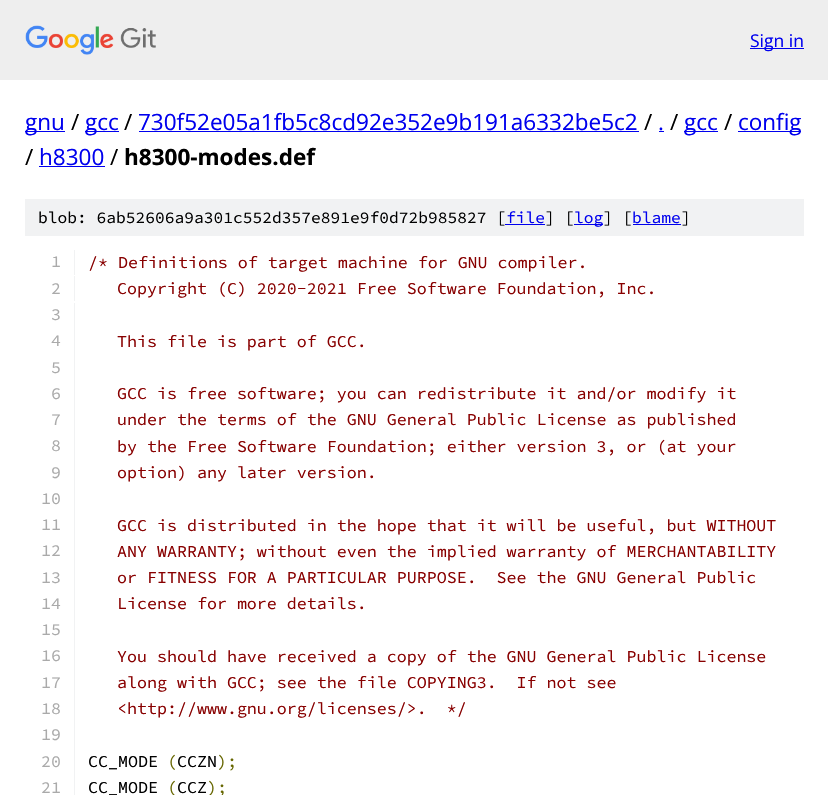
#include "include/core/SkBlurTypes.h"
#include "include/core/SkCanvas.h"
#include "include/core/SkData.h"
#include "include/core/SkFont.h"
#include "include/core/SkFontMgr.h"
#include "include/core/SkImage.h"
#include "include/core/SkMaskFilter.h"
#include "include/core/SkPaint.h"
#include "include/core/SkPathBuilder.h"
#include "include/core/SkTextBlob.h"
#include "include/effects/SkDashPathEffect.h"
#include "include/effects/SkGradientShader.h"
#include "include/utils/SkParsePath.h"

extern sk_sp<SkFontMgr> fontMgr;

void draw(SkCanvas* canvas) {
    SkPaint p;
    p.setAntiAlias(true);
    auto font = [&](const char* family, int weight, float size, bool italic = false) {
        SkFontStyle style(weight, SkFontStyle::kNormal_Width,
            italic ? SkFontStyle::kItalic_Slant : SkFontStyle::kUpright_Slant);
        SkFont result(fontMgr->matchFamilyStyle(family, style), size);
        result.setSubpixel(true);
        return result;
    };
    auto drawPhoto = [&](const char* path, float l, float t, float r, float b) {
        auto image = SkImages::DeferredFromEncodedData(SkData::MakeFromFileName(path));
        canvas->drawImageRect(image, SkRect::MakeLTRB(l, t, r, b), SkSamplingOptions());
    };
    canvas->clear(0xFFFFFFFF);
    p.setColor(0xFFEEEEEE);
    canvas->drawRect(SkRect::MakeLTRB(0, 0, 828, 80), p);
    drawPhoto("media/1.png", 25, 25, 156, 55);
    p.setColor(0xFF0000EE);
    canvas->drawRect(SkRect::MakeLTRB(750, 48, 804, 49), p);
    auto font1 = font("Open Sans", 400, 17.5f);
    canvas->drawString("Sign in", 750, 47, font1, p);
    canvas->drawRect(SkRect::MakeLTRB(25, 131, 65, 132), p);
    auto font2 = font("Open Sans", 400, 22.5f);
    canvas->drawString("gnu", 25, 130, font2, p);
    p.setColor(0xFF000000);
    canvas->drawString("/", 71, 130, font2, p);
    p.setColor(0xFF0000EE);
    canvas->drawRect(SkRect::MakeLTRB(85, 131, 119, 132), p);
    canvas->drawString("gcc", 85, 130, font2, p);
    p.setColor(0xFF000000);
    canvas->drawString("/", 124, 130, font2, p);
    p.setColor(0xFF0000EE);
    canvas->drawString("730f52e05a1fb5c8cd92e352e9b191a6332be5c2", 138, 130, font2, p);
    canvas->drawRect(SkRect::MakeLTRB(139, 131, 639, 132), p);
    p.setColor(0xFF000000);
    canvas->drawString("/", 644, 130, font2, p);
    p.setColor(0xFF0000EE);
    canvas->drawString(".", 658, 130, font2, p);
    canvas->drawRect(SkRect::MakeLTRB(659, 131, 664, 132), p);
    p.setColor(0xFF000000);
    canvas->drawString("/", 670, 130, font2, p);
    p.setColor(0xFF0000EE);
    canvas->drawRect(SkRect::MakeLTRB(684, 131, 718, 132), p);
    canvas->drawString("gcc", 684, 130, font2, p);
    p.setColor(0xFF000000);
    canvas->drawString("/", 724, 130, font2, p);
    p.setColor(0xFF0000EE);
    canvas->drawRect(SkRect::MakeLTRB(738, 131, 801, 132), p);
    canvas->drawString("config", 738, 130, font2, p);
    p.setColor(0xFF000000);
    canvas->drawString("/", 25, 165, font2, p);
    p.setColor(0xFF0000EE);
    canvas->drawString("h8300", 39, 165, font2, p);
    canvas->drawRect(SkRect::MakeLTRB(39, 166, 105, 167), p);
    p.setColor(0xFF000000);
    canvas->drawString("/", 110, 165, font2, p);
    auto font3 = font("Open Sans", 700, 22.5f);
    canvas->drawString("h8300-modes.def", 124, 165, font3, p);
    p.setColor(0xFFF1F2F3);
    canvas->drawRect(SkRect::MakeLTRB(25, 199, 804, 236), p);
    auto font4 = font("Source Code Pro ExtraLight", 200, 16.25f);
    p.setColor(0xFF000000);
    canvas->drawString("blob: 6ab52606a9a301c552d357e891e9f0d72b985827 [", 38, 223, font4, p);
    p.setColor(0xFF0000EE);
    canvas->drawString("file", 506, 223, font4, p);
    canvas->drawRect(SkRect::MakeLTRB(505, 224, 545, 225), p);
    p.setColor(0xFF000000);
    canvas->drawString("] [", 545, 223, font4, p);
    p.setColor(0xFF0000EE);
    canvas->drawRect(SkRect::MakeLTRB(574, 224, 603, 225), p);
    canvas->drawString("log", 574, 223, font4, p);
    p.setColor(0xFF000000);
    canvas->drawString("] [", 603, 223, font4, p);
    p.setColor(0xFF0000EE);
    canvas->drawString("blame", 632, 223, font4, p);
    canvas->drawRect(SkRect::MakeLTRB(633, 224, 681, 225), p);
    p.setColor(0xFF000000);
    canvas->drawString("]", 681, 223, font4, p);
    p.setColor(0xFFF1F2F3);
    canvas->drawRect(SkRect::MakeLTRB(74, 250, 75, 275), p);
    auto font5 = font("Source Code Pro ExtraLight", 200, 16.65f);
    p.setColor(0xFFAAAAAA);
    canvas->drawString("1", 51, 267, font5, p);
    p.setColor(0xFF880000);
    canvas->drawString("/* Definitions of target machine for GNU compiler.", 88, 268, font5, p);
    p.setColor(0xFFF1F2F3);
    canvas->drawRect(SkRect::MakeLTRB(74, 276, 75, 301), p);
    p.setColor(0xFFAAAAAA);
    canvas->drawString("2", 51, 294, font5, p);
    p.setColor(0xFF880000);
    canvas->drawString("Copyright (C) 2020-2021 Free Software Foundation, Inc.", 117, 294, font5, p);
    p.setColor(0xFFF1F2F3);
    canvas->drawRect(SkRect::MakeLTRB(74, 303, 75, 795), p);
    p.setColor(0xFFAAAAAA);
    canvas->drawString("3", 51, 320, font5, p);
    canvas->drawString("4", 51, 346, font5, p);
    p.setColor(0xFF880000);
    canvas->drawString("This file is part of GCC.", 117, 347, font5, p);
    p.setColor(0xFFAAAAAA);
    canvas->drawString("5", 51, 373, font5, p);
    canvas->drawString("6", 51, 399, font5, p);
    p.setColor(0xFF880000);
    canvas->drawString("GCC is free software; you can redistribute it and/or modify it", 117, 399, font5, p);
    p.setColor(0xFFAAAAAA);
    canvas->drawString("7", 51, 425, font5, p);
    p.setColor(0xFF880000);
    canvas->drawString("under the terms of the GNU General Public License as published", 117, 425, font5, p);
    p.setColor(0xFFAAAAAA);
    canvas->drawString("8", 51, 451, font5, p);
    p.setColor(0xFF880000);
    canvas->drawString("by the Free Software Foundation; either version 3, or (at your", 117, 452, font5, p);
    p.setColor(0xFFAAAAAA);
    canvas->drawString("9", 51, 478, font5, p);
    p.setColor(0xFF880000);
    canvas->drawString("option) any later version.", 117, 478, font5, p);
    p.setColor(0xFFAAAAAA);
    canvas->drawString("10", 41, 504, font5, p);
    canvas->drawString("11", 41, 530, font5, p);
    p.setColor(0xFF880000);
    canvas->drawString("GCC is distributed in the hope that it will be useful, but WITHOUT", 117, 531, font5, p);
    p.setColor(0xFFAAAAAA);
    canvas->drawString("12", 41, 556, font5, p);
    p.setColor(0xFF880000);
    canvas->drawString("ANY WARRANTY; without even the implied warranty of MERCHANTABILITY", 117, 557, font5, p);
    p.setColor(0xFFAAAAAA);
    canvas->drawString("13", 41, 583, font5, p);
    p.setColor(0xFF880000);
    canvas->drawString("or FITNESS FOR A PARTICULAR PURPOSE.  See the GNU General Public", 117, 583, font5, p);
    p.setColor(0xFFAAAAAA);
    canvas->drawString("14", 41, 609, font5, p);
    p.setColor(0xFF880000);
    canvas->drawString("License for more details.", 117, 609, font5, p);
    p.setColor(0xFFAAAAAA);
    canvas->drawString("15", 41, 635, font5, p);
    canvas->drawString("16", 41, 661, font5, p);
    p.setColor(0xFF880000);
    canvas->drawString("You should have received a copy of the GNU General Public License", 117, 662, font5, p);
    p.setColor(0xFFAAAAAA);
    canvas->drawString("17", 41, 688, font5, p);
    p.setColor(0xFF880000);
    canvas->drawString("along with GCC; see the file COPYING3.  If not see", 117, 688, font5, p);
    p.setColor(0xFFAAAAAA);
    canvas->drawString("18", 41, 714, font5, p);
    p.setColor(0xFF880000);
    canvas->drawString("<http://www.gnu.org/licenses/>.  */", 117, 714, font5, p);
    p.setColor(0xFFAAAAAA);
    canvas->drawString("19", 41, 740, font5, p);
    canvas->drawString("20", 41, 767, font5, p);
    p.setColor(0xFF000000);
    canvas->drawString("CC_MODE", 88, 767, font5, p);
    p.setColor(0xFF666600);
    canvas->drawString("(", 167, 767, font5, p);
    p.setColor(0xFF000000);
    canvas->drawString("CCZN", 177, 767, font5, p);
    p.setColor(0xFF666600);
    canvas->drawString(");", 217, 767, font5, p);
    p.setColor(0xFFAAAAAA);
    canvas->drawString("21", 41, 793, font5, p);
    p.setColor(0xFF000000);
    canvas->drawString("CC_MODE", 88, 793, font5, p);
    p.setColor(0xFF666600);
    canvas->drawString("(", 167, 793, font5, p);
    p.setColor(0xFF000000);
    canvas->drawString("CCZ", 177, 793, font5, p);
    p.setColor(0xFF666600);
    canvas->drawString(");", 207, 793, font5, p);
}
